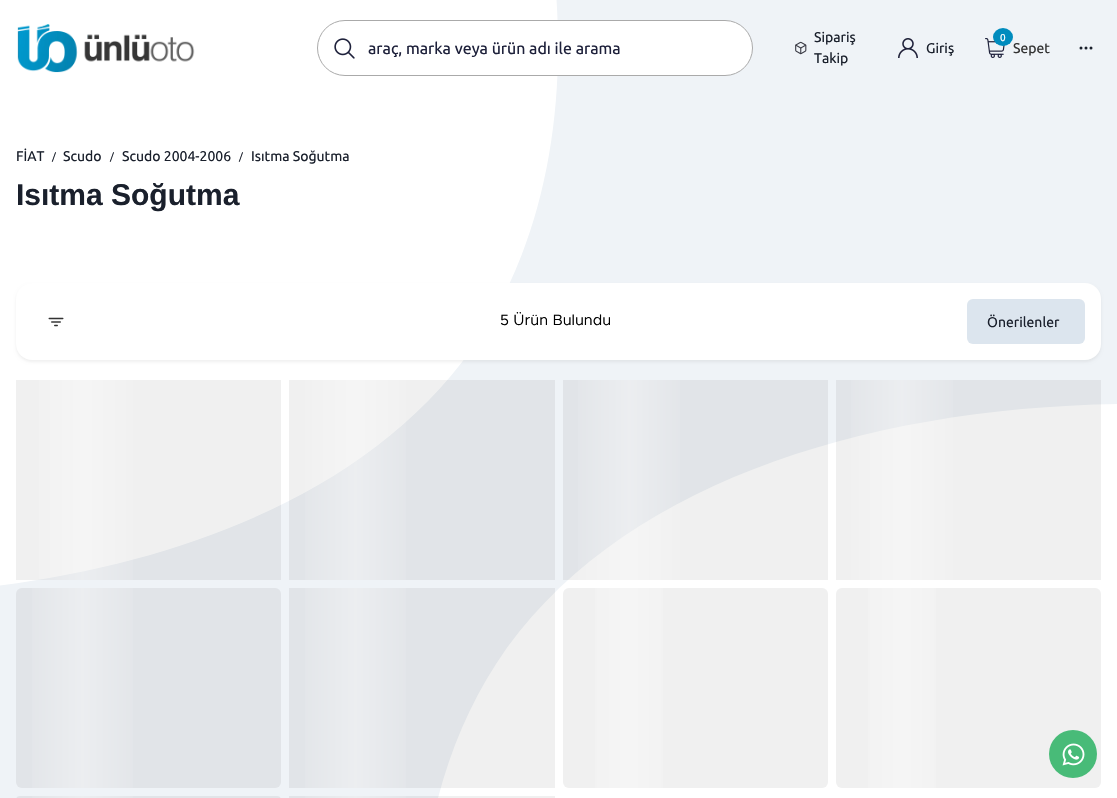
#include "include/core/SkBlurTypes.h"
#include "include/core/SkCanvas.h"
#include "include/core/SkData.h"
#include "include/core/SkFont.h"
#include "include/core/SkFontMgr.h"
#include "include/core/SkImage.h"
#include "include/core/SkMaskFilter.h"
#include "include/core/SkPaint.h"
#include "include/core/SkPathBuilder.h"
#include "include/core/SkTextBlob.h"
#include "include/effects/SkDashPathEffect.h"
#include "include/effects/SkGradientShader.h"
#include "include/utils/SkParsePath.h"

extern sk_sp<SkFontMgr> fontMgr;

void draw(SkCanvas* canvas) {
    SkPaint p;
    p.setAntiAlias(true);
    auto font = [&](const char* family, int weight, float size, bool italic = false) {
        SkFontStyle style(weight, SkFontStyle::kNormal_Width,
            italic ? SkFontStyle::kItalic_Slant : SkFontStyle::kUpright_Slant);
        SkFont result(fontMgr->matchFamilyStyle(family, style), size);
        result.setSubpixel(true);
        return result;
    };
    auto drawPhoto = [&](const char* path, float l, float t, float r, float b) {
        auto image = SkImages::DeferredFromEncodedData(SkData::MakeFromFileName(path));
        canvas->drawImageRect(image, SkRect::MakeLTRB(l, t, r, b), SkSamplingOptions());
    };
    canvas->clear(0xFFEFF3F7);
    drawPhoto("media/1.png", 0, 0, 558, 586);
    drawPhoto("media/2.png", 17, 24, 195, 73);
    p.setColor(0xFFFFFFFF);
    canvas->drawRoundRect(SkRect::MakeLTRB(317.5f, 20.5f, 752.5f, 75.5f), 27.5f, 27.5f, p);
    p.setStyle(SkPaint::kStroke_Style);
    p.setStrokeWidth(1);
    p.setColor(0xFFAAAAAA);
    canvas->drawRoundRect(SkRect::MakeLTRB(317.5f, 20.5f, 752.5f, 75.5f), 27.5f, 27.5f, p);
    drawPhoto("media/3.png", 334, 38, 355, 59);
    auto font1 = font("Ubuntu", 400, 16);
    p.setStyle(SkPaint::kFill_Style);
    p.setColor(0xFF1E213B);
    canvas->drawString("araç, marka veya ürün adı ile arama", 368, 54, font1, p);
    drawPhoto("media/4.png", 795, 41, 807, 55);
    auto font2 = font("Ubuntu", 400, 14);
    p.setColor(0xFF1A202C);
    canvas->drawString("Sipariş", 814, 42, font2, p);
    canvas->drawString("Takip", 814, 63, font2, p);
    drawPhoto("media/5.png", 898, 38, 918, 58);
    canvas->drawString("Giriş", 926, 53, font2, p);
    drawPhoto("media/6.png", 985, 38, 1005, 58);
    p.setColor(0xFF008CBE);
    canvas->drawOval(SkRect::MakeLTRB(993, 28, 1013, 46), p);
    auto font3 = font("Ubuntu", 400, 10);
    p.setColor(0xFFFFFFFF);
    canvas->drawString("0", 1000, 41, font3, p);
    p.setColor(0xFF333333);
    canvas->drawString("Sepet", 1013, 53, font2, p);
    p.setColor(0xFF1A202C);
    canvas->drawCircle(1086, 48, 1.5f, p);
    canvas->drawCircle(1091, 48, 1.5f, p);
    canvas->drawCircle(1081, 48, 1.5f, p);
    canvas->drawString("FİAT", 16, 161, font2, p);
    canvas->drawString("/", 52, 160, font3, p);
    canvas->drawString("Scudo", 63, 161, font2, p);
    canvas->drawString("/", 110, 160, font3, p);
    canvas->drawString("Scudo 2004-2006", 122, 161, font2, p);
    canvas->drawString("/", 239, 160, font3, p);
    canvas->drawString("Isıtma Soğutma", 251, 161, font2, p);
    auto font4 = font("Liberation Sans", 700, 30);
    canvas->drawString("Isıtma Soğutma", 16, 205, font4, p);
    p.setColor(0x0F000000);
    p.setMaskFilter(SkMaskFilter::MakeBlur(kNormal_SkBlurStyle, 1.5f));
    canvas->drawRoundRect(SkRect::MakeLTRB(16, 285, 1101, 362), 16, 16, p);
    p.setMaskFilter(nullptr);
    p.setColor(0xFFFFFFFF);
    canvas->drawRoundRect(SkRect::MakeLTRB(16, 283, 1101, 360), 16, 16, p);
    drawPhoto("media/7.png", 48, 317, 64, 327);
    auto font5 = font("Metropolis", 400, 15);
    p.setColor(0xFF000000);
    canvas->drawString("5 Ürün Bulundu", 500, 325, font5, p);
    p.setColor(0xFFDCE5EE);
    canvas->drawRoundRect(SkRect::MakeLTRB(967, 299, 1085, 344), 6, 6, p);
    p.setColor(0xFF1A202C);
    canvas->drawString("Önerilenler", 987, 327, font2, p);
    p.setColor(0x0F000000);
    canvas->drawRect(SkRect::MakeLTRB(16, 380, 281, 580), p);
    {
        const SkColor colors[] = {0x00FFFFFF, 0x5CFFFFFF, 0x00FFFFFF};
        const float stops[] = {0, 0.5f, 1};
        const SkPoint ends[] = {{16, 480}, {149, 480}};
        p.setShader(SkGradientShader::MakeLinear(ends, colors, stops, 3, SkTileMode::kClamp));
        p.setAlpha(255);
    }
    canvas->drawRect(SkRect::MakeLTRB(39, 380, 133, 580), p);
    p.setShader(nullptr);
    p.setColor(0xFFFFFFFF);
    canvas->drawPath(SkPathBuilder().moveTo(525, 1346).cubicTo(399, 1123, 380, 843, 496, 664).cubicTo(613, 485, 865, 407, 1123, 404).cubicTo(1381, 401, 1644, 472, 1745, 642).cubicTo(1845, 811, 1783, 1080, 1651, 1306).cubicTo(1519, 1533, 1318, 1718, 1101, 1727).cubicTo(884, 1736, 651, 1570, 525, 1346).close().detach(), p);
    p.setColor(0x0F000000);
    canvas->drawRect(SkRect::MakeLTRB(289, 380, 555, 580), p);
    {
        const SkColor colors[] = {0x00FFFFFF, 0x5CFFFFFF, 0x00FFFFFF};
        const float stops[] = {0, 0.5f, 1};
        const SkPoint ends[] = {{289, 480}, {422, 480}};
        p.setShader(SkGradientShader::MakeLinear(ends, colors, stops, 3, SkTileMode::kClamp));
        p.setAlpha(255);
    }
    canvas->drawRect(SkRect::MakeLTRB(305, 380, 406, 580), p);
    p.setShader(nullptr);
    p.setColor(0x0F000000);
    canvas->drawRect(SkRect::MakeLTRB(563, 380, 828, 580), p);
    {
        const SkColor colors[] = {0x00FFFFFF, 0x5CFFFFFF, 0x00FFFFFF};
        const float stops[] = {0, 0.5f, 1};
        const SkPoint ends[] = {{563, 480}, {695, 480}};
        p.setShader(SkGradientShader::MakeLinear(ends, colors, stops, 3, SkTileMode::kClamp));
        p.setAlpha(255);
    }
    canvas->drawRect(SkRect::MakeLTRB(578, 380, 680, 580), p);
    p.setShader(nullptr);
    p.setColor(0x0F000000);
    canvas->drawRect(SkRect::MakeLTRB(836, 380, 1101, 580), p);
    {
        const SkColor colors[] = {0x00FFFFFF, 0x5CFFFFFF, 0x00FFFFFF};
        const float stops[] = {0, 0.5f, 1};
        const SkPoint ends[] = {{836, 480}, {968, 480}};
        p.setShader(SkGradientShader::MakeLinear(ends, colors, stops, 3, SkTileMode::kClamp));
        p.setAlpha(255);
    }
    canvas->drawRect(SkRect::MakeLTRB(851, 380, 953, 580), p);
    p.setShader(nullptr);
    p.setColor(0xFFE1E4E8);
    canvas->drawRoundRect(SkRect::MakeLTRB(16, 588, 281, 788), 6, 6, p);
    {
        const SkColor colors[] = {0x00FFFFFF, 0x5CFFFFFF, 0x00FFFFFF};
        const float stops[] = {0, 0.5f, 1};
        const SkPoint ends[] = {{16, 688}, {149, 688}};
        p.setShader(SkGradientShader::MakeLinear(ends, colors, stops, 3, SkTileMode::kClamp));
        p.setAlpha(255);
    }
    canvas->drawRect(SkRect::MakeLTRB(32, 588, 133, 788), p);
    p.setShader(nullptr);
    p.setColor(0x0F000000);
    canvas->drawRect(SkRect::MakeLTRB(289, 588, 555, 788), p);
    {
        const SkColor colors[] = {0x00FFFFFF, 0x5CFFFFFF, 0x00FFFFFF};
        const float stops[] = {0, 0.5f, 1};
        const SkPoint ends[] = {{289, 688}, {422, 688}};
        p.setShader(SkGradientShader::MakeLinear(ends, colors, stops, 3, SkTileMode::kClamp));
        p.setAlpha(255);
    }
    canvas->drawRect(SkRect::MakeLTRB(305, 588, 406, 788), p);
    p.setShader(nullptr);
    p.setColor(0xFFF0F0F0);
    canvas->drawRoundRect(SkRect::MakeLTRB(563, 588, 828, 788), 6, 6, p);
    {
        const SkColor colors[] = {0x00FFFFFF, 0x5CFFFFFF, 0x00FFFFFF};
        const float stops[] = {0, 0.5f, 1};
        const SkPoint ends[] = {{563, 688}, {695, 688}};
        p.setShader(SkGradientShader::MakeLinear(ends, colors, stops, 3, SkTileMode::kClamp));
        p.setAlpha(255);
    }
    canvas->drawRect(SkRect::MakeLTRB(595, 588, 663, 788), p);
    p.setShader(nullptr);
    p.setColor(0xFFF0F0F0);
    canvas->drawRoundRect(SkRect::MakeLTRB(836, 588, 1101, 788), 6, 6, p);
    {
        const SkColor colors[] = {0x00FFFFFF, 0x5CFFFFFF, 0x00FFFFFF};
        const float stops[] = {0, 0.5f, 1};
        const SkPoint ends[] = {{836, 688}, {968, 688}};
        p.setShader(SkGradientShader::MakeLinear(ends, colors, stops, 3, SkTileMode::kClamp));
        p.setAlpha(255);
    }
    canvas->drawRect(SkRect::MakeLTRB(868, 588, 936, 788), p);
    p.setShader(nullptr);
    p.setColor(0xFFE1E4E8);
    canvas->drawRoundRect(SkRect::MakeLTRB(16, 796, 281, 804), 6, 6, p);
    {
        const SkColor colors[] = {0x00FFFFFF, 0x5CFFFFFF, 0x00FFFFFF};
        const float stops[] = {0, 0.5f, 1};
        const SkPoint ends[] = {{16, 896}, {149, 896}};
        p.setShader(SkGradientShader::MakeLinear(ends, colors, stops, 3, SkTileMode::kClamp));
        p.setAlpha(255);
    }
    canvas->drawRect(SkRect::MakeLTRB(32, 796, 133, 798), p);
    p.setShader(nullptr);
    p.setColor(0x0F000000);
    canvas->drawRect(SkRect::MakeLTRB(289, 796, 555, 798), p);
    {
        const SkColor colors[] = {0x00FFFFFF, 0x5CFFFFFF, 0x00FFFFFF};
        const float stops[] = {0, 0.5f, 1};
        const SkPoint ends[] = {{289, 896}, {422, 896}};
        p.setShader(SkGradientShader::MakeLinear(ends, colors, stops, 3, SkTileMode::kClamp));
        p.setAlpha(255);
    }
    canvas->drawRect(SkRect::MakeLTRB(305, 796, 406, 798), p);
    p.setShader(nullptr);
    p.setColor(0xFF48BB78);
    canvas->drawCircle(1073, 754, 24, p);
    drawPhoto("media/8.png", 1062, 743, 1085, 766);
}
